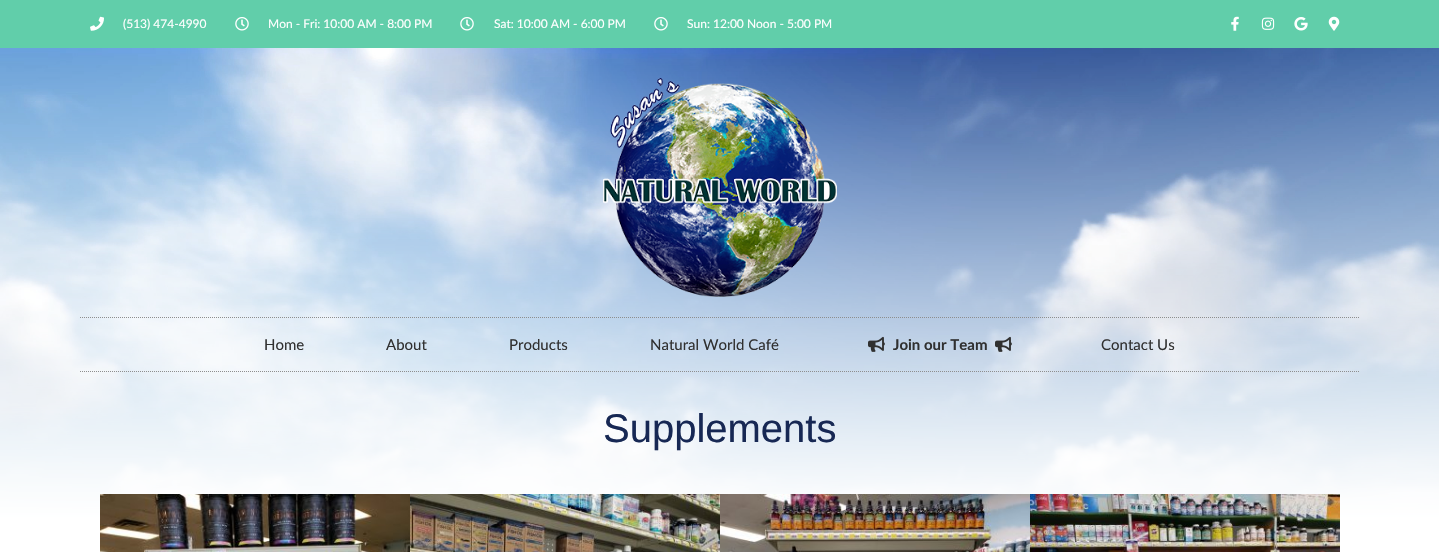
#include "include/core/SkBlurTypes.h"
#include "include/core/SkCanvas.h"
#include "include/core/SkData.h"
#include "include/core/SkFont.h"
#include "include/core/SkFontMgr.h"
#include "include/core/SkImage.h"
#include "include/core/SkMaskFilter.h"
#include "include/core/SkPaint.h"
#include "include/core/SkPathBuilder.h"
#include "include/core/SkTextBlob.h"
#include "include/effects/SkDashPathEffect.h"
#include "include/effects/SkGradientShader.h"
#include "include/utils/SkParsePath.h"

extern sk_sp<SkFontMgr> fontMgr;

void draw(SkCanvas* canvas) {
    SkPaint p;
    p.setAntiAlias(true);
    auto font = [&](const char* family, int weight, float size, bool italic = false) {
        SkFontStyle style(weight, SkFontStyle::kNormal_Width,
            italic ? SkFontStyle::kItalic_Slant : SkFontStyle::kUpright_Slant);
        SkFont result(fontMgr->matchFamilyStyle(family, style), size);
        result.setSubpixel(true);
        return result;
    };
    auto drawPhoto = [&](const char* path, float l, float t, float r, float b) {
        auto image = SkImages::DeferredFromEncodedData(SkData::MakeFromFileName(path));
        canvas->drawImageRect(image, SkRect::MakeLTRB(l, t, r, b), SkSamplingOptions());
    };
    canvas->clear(0xFFFFFFFF);
    p.setColor(0xFF61CEAA);
    canvas->drawRect(SkRect::MakeLTRB(0, 0, 1439, 48), p);
    drawPhoto("media/1.png", 90, 16, 104, 31);
    auto font1 = font("Lato", 400, 12);
    p.setColor(0xFFFFFFFF);
    canvas->drawString("(513) 474-4990", 123, 28, font1, p);
    drawPhoto("media/2.png", 235, 17, 249, 31);
    canvas->drawString("Mon - Fri: 10:00 AM - 8:00 PM", 268, 28, font1, p);
    drawPhoto("media/2.png", 460, 17, 474, 31);
    canvas->drawString("Sat: 10:00 AM - 6:00 PM", 494, 28, font1, p);
    drawPhoto("media/2.png", 654, 17, 668, 31);
    canvas->drawString("Sun: 12:00 Noon - 5:00 PM", 687, 28, font1, p);
    drawPhoto("media/3.png", 1231, 16, 1239, 31);
    drawPhoto("media/4.png", 1261, 17, 1275, 30);
    drawPhoto("media/5.png", 1294, 17, 1308, 31);
    drawPhoto("media/6.png", 1328, 16, 1340, 31);
    drawPhoto("media/7.png", 0, 48, 1439, 520);
    drawPhoto("media/8.png", 603, 78, 837, 297);
    p.setStyle(SkPaint::kStroke_Style);
    p.setStrokeWidth(1);
    p.setColor(0xFF8E8E8E);
    p.setPathEffect(SkDashPathEffect::Make({{1, 1}}, 0));
    canvas->drawPath(SkPathBuilder().moveTo(80, 317.5f).lineTo(1360, 317.5f).detach(), p);
    p.setPathEffect(nullptr);
    p.setPathEffect(SkDashPathEffect::Make({{1, 1}}, 0));
    canvas->drawPath(SkPathBuilder().moveTo(80, 371.5f).lineTo(1360, 371.5f).detach(), p);
    p.setPathEffect(nullptr);
    auto font2 = font("Lato", 400, 15);
    p.setStyle(SkPaint::kFill_Style);
    p.setColor(0xFF303030);
    {
        const struct { const char* s; float x, y; } items[] = {
            {"Home", 264, 350},
            {"About", 386, 350},
            {"Products", 509, 350},
            {"Natural World Café", 650, 350},
        };
        for (auto [s, x, y] : items) {
            canvas->drawString(s, x, y, font2, p);
        }
    }
    drawPhoto("media/9.png", 868, 336, 885, 352);
    auto font3 = font("Lato", 700, 15);
    canvas->drawString("Join our Team", 893, 350, font3, p);
    drawPhoto("media/10.png", 995, 336, 1012, 352);
    canvas->drawString("Contact Us", 1101, 350, font2, p);
    auto font4 = font("Liberation Sans", 400, 40);
    p.setColor(0xFF172854);
    canvas->drawString("Supplements", 603, 442, font4, p);
    drawPhoto("media/11.png", 100, 494, 410, 552);
    drawPhoto("media/12.png", 410, 494, 720, 552);
    drawPhoto("media/13.png", 720, 494, 1030, 552);
    drawPhoto("media/14.png", 1030, 494, 1340, 552);
}
